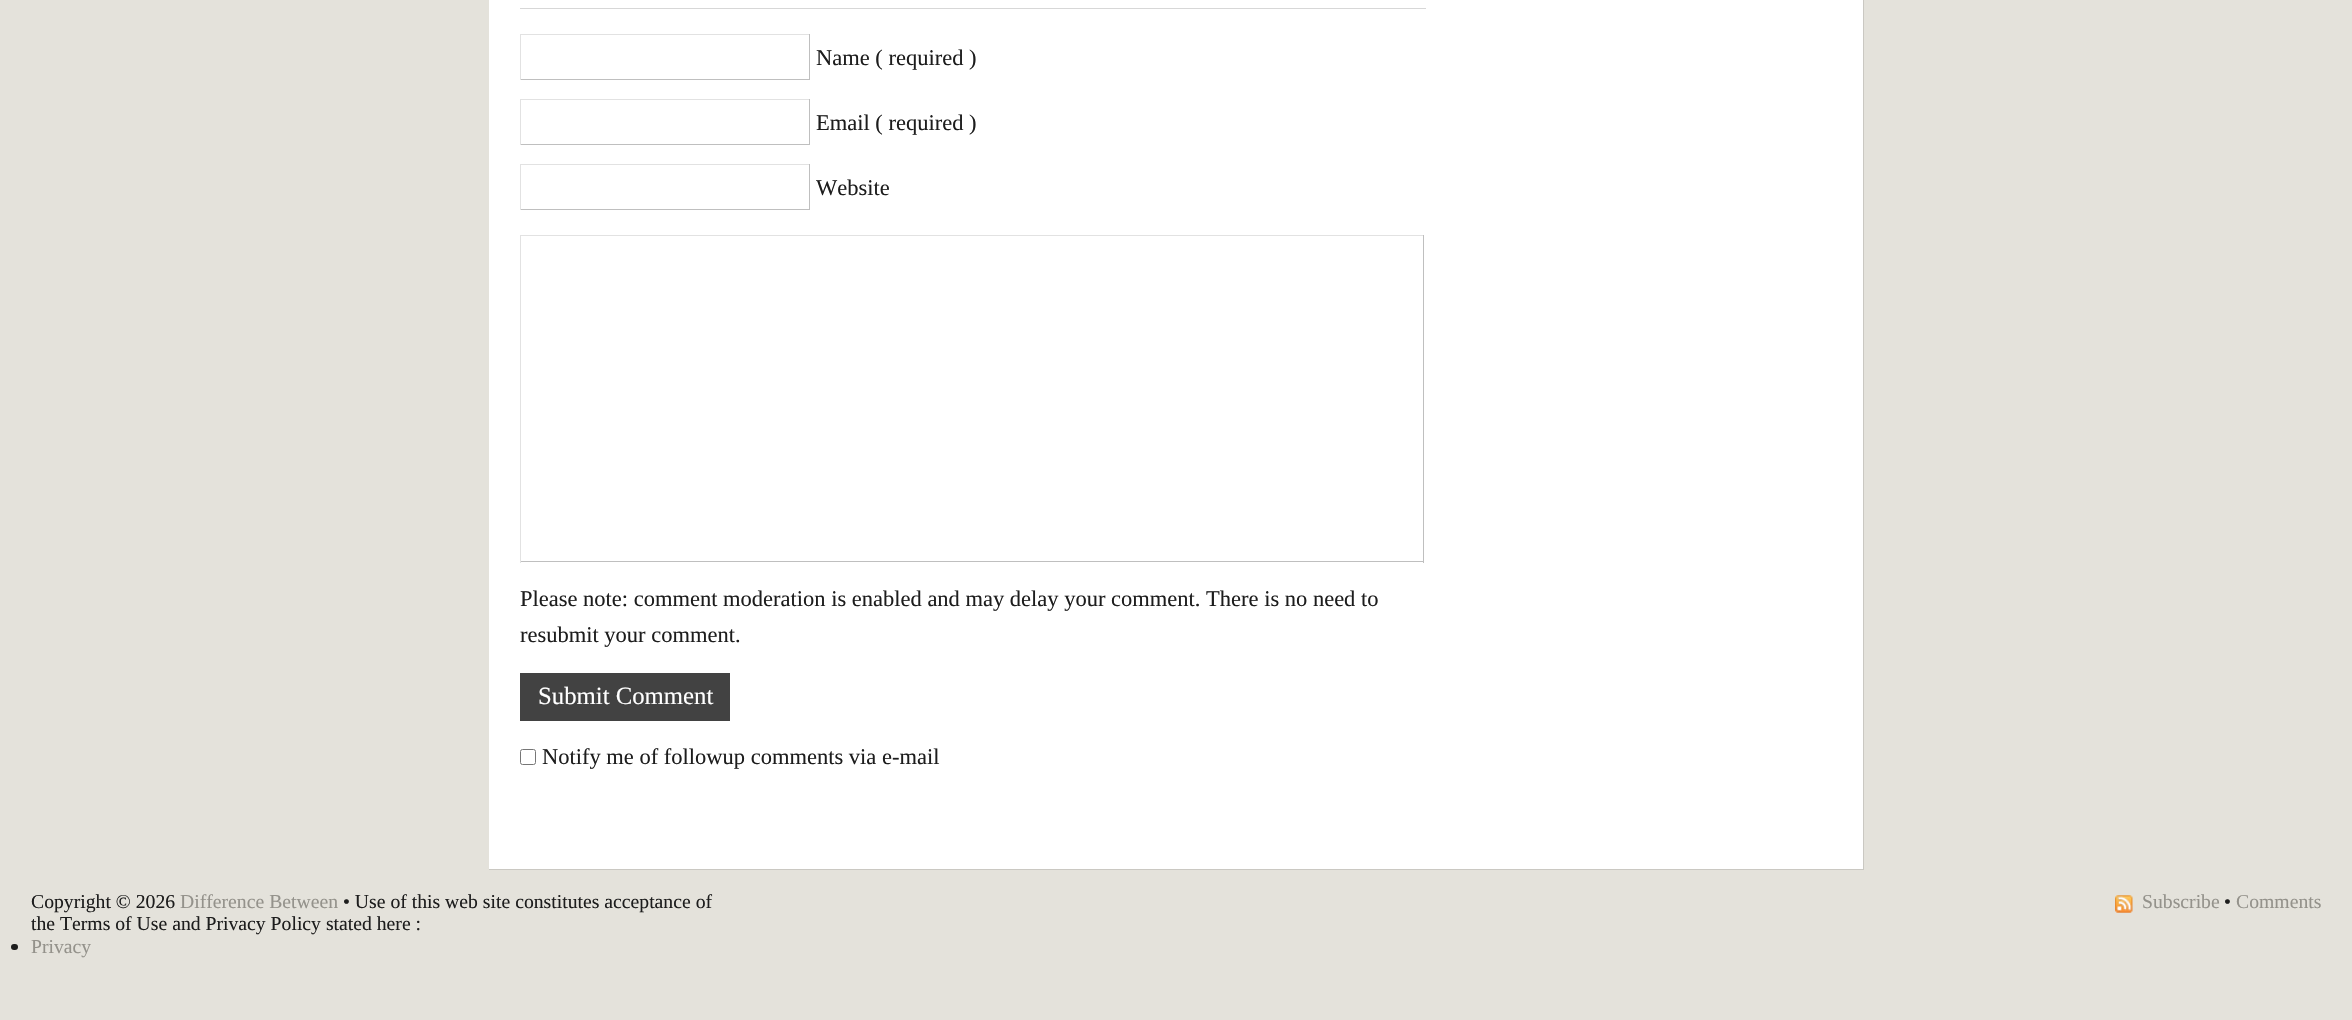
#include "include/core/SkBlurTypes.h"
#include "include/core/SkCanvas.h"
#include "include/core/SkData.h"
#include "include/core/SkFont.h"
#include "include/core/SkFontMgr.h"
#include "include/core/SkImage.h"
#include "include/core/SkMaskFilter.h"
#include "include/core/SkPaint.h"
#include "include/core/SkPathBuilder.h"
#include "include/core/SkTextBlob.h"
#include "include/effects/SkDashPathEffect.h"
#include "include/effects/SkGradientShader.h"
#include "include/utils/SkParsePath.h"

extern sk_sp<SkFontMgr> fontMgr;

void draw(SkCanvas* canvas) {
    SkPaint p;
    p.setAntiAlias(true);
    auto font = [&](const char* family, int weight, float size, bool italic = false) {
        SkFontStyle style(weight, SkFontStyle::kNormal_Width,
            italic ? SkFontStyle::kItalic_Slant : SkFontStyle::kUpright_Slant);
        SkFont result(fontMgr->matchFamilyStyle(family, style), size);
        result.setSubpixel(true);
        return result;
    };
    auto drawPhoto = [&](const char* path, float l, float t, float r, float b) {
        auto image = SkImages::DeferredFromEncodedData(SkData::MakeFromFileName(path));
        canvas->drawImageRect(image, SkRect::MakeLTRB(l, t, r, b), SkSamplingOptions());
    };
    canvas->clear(0xFFE4E2DB);
    {
        const struct { float l, t, r, b; SkColor color; } items[] = {
            {489, 0, 1863, 869, 0xFFFFFFFF},
            {1863, 0, 1864, 870, 0xFFCAC8C2},
            {489, 869, 1864, 870, 0xFFCAC8C2},
            {520, 8, 1426, 9, 0xFFD7D7D7},
            {520, 34, 810, 35, 0xFFE2E2E2},
            {809, 34, 810, 80, 0xFFBFBFBF},
            {520, 79, 810, 80, 0xFFBFBFBF},
            {520, 34, 521, 80, 0xFFE2E2E2},
        };
        for (auto [l, t, r, b, color] : items) {
            p.setColor(color);
            canvas->drawRect(SkRect::MakeLTRB(l, t, r, b), p);
        }
    }
    auto font1 = font("Liberation Serif", 400, 22.5f);
    p.setColor(0xFF1D1D1D);
    canvas->drawString("Name ( required )", 816, 65, font1, p);
    {
        const struct { float l, t, r, b; SkColor color; } items[] = {
            {520, 99, 810, 100, 0xFFE2E2E2},
            {809, 99, 810, 145, 0xFFBFBFBF},
            {520, 144, 810, 145, 0xFFBFBFBF},
            {520, 99, 521, 145, 0xFFE2E2E2},
        };
        for (auto [l, t, r, b, color] : items) {
            p.setColor(color);
            canvas->drawRect(SkRect::MakeLTRB(l, t, r, b), p);
        }
    }
    p.setColor(0xFF1D1D1D);
    canvas->drawString("Email ( required )", 816, 130, font1, p);
    {
        const struct { float l, t, r, b; SkColor color; } items[] = {
            {520, 164, 810, 165, 0xFFE2E2E2},
            {809, 164, 810, 210, 0xFFBFBFBF},
            {520, 209, 810, 210, 0xFFBFBFBF},
            {520, 164, 521, 210, 0xFFE2E2E2},
        };
        for (auto [l, t, r, b, color] : items) {
            p.setColor(color);
            canvas->drawRect(SkRect::MakeLTRB(l, t, r, b), p);
        }
    }
    p.setColor(0xFF1D1D1D);
    canvas->drawString("Website", 816, 195, font1, p);
    {
        const struct { float l, t, r, b; SkColor color; } items[] = {
            {520, 235, 1424, 236, 0xFFE2E2E2},
            {1423, 235, 1424, 563, 0xFFBFBFBF},
            {520, 561, 1424, 562, 0xFFBFBFBF},
            {520, 235, 521, 563, 0xFFE2E2E2},
        };
        for (auto [l, t, r, b, color] : items) {
            p.setColor(color);
            canvas->drawRect(SkRect::MakeLTRB(l, t, r, b), p);
        }
    }
    p.setColor(0xFF1D1D1D);
    canvas->drawString("Please note: comment moderation is enabled and may delay your comment. There is no need to", 520, 606, font1, p);
    canvas->drawString("resubmit your comment.", 520, 642, font1, p);
    p.setColor(0xFF424242);
    canvas->drawRect(SkRect::MakeLTRB(520, 673, 730, 721), p);
    auto font2 = font("Liberation Serif", 400, 24.75f);
    p.setColor(0xFFFFFFFF);
    canvas->drawString("Submit Comment", 538, 704, font2, p);
    p.setStyle(SkPaint::kStroke_Style);
    p.setStrokeWidth(1);
    p.setColor(0xFF767676);
    canvas->drawRoundRect(SkRect::MakeLTRB(520.5f, 749.5f, 535.5f, 764.5f), 2, 2, p);
    p.setStyle(SkPaint::kFill_Style);
    p.setColor(0xFF1D1D1D);
    canvas->drawString("Notify me of followup comments via e-mail", 542, 764, font1, p);
    auto font3 = font("Liberation Serif", 400, 19.7f);
    canvas->drawString("Copyright © 2026", 31, 908, font3, p);
    p.setColor(0xFF94928B);
    canvas->drawString("Difference Between", 180, 908, font3, p);
    p.setColor(0xFF1D1D1D);
    canvas->drawString("• Use of this web site constitutes acceptance of", 343, 908, font3, p);
    canvas->drawString("the Terms of Use and Privacy Policy stated here :", 31, 930, font3, p);
    canvas->drawRoundRect(SkRect::MakeLTRB(11, 944, 18, 950), 3, 3, p);
    p.setColor(0xFF94928B);
    canvas->drawString("Privacy", 31, 953, font3, p);
    drawPhoto("media/1.png", 2115, 895, 2133, 913);
    canvas->drawString("Subscribe", 2142, 908, font3, p);
    p.setColor(0xFF1D1D1D);
    canvas->drawString("•", 2224, 908, font3, p);
    p.setColor(0xFF94928B);
    canvas->drawString("Comments", 2236, 908, font3, p);
}
